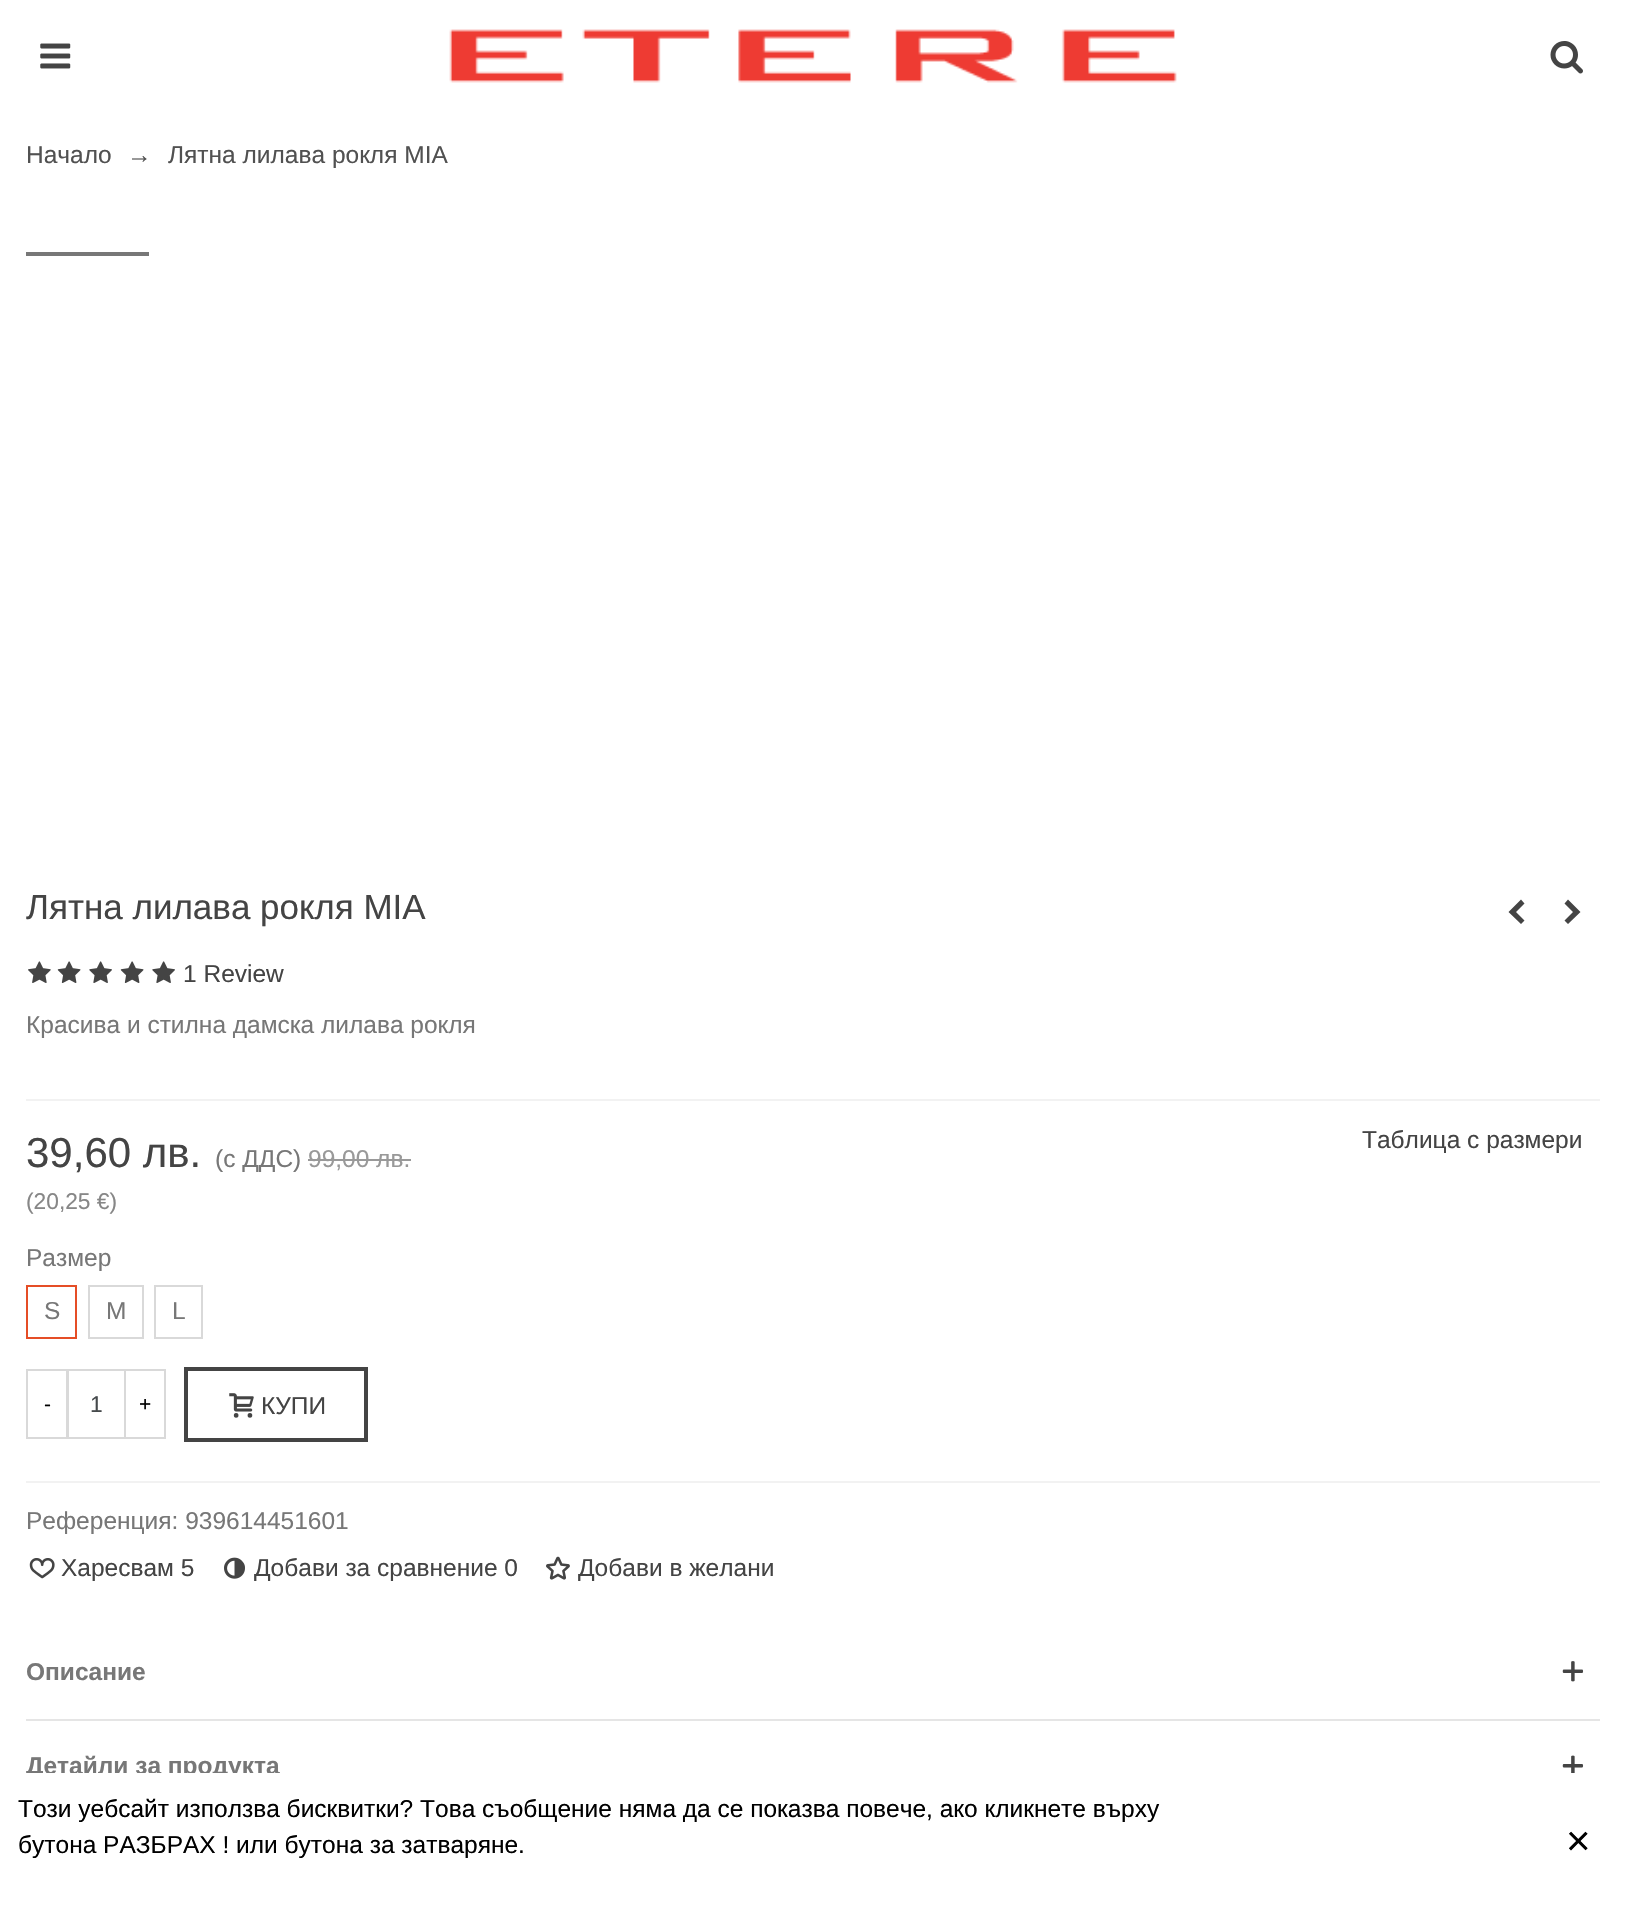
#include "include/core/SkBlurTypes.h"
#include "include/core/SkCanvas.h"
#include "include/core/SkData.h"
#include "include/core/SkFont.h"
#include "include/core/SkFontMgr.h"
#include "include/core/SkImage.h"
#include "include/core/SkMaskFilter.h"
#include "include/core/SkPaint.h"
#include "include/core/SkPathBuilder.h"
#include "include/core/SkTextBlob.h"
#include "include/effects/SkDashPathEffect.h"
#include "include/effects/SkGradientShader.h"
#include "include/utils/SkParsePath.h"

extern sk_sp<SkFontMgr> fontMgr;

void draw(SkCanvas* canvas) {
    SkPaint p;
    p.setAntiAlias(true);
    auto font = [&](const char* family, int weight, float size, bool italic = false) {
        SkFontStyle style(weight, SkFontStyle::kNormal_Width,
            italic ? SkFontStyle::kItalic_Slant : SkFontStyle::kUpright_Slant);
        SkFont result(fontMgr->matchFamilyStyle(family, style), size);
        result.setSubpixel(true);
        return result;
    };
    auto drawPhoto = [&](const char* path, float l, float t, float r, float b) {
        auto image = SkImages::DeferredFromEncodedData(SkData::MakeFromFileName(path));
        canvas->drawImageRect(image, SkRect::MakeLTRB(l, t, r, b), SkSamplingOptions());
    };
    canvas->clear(0xFFFFFFFF);
    drawPhoto("media/1.png", 40, 43, 71, 69);
    drawPhoto("media/2.png", 449, 29, 1177, 83);
    drawPhoto("media/3.png", 1550, 41, 1583, 74);
    auto font1 = font("Liberation Sans", 400, 24.5f);
    p.setColor(0xFF515151);
    {
        const struct { const char* s; float x, y; } items[] = {
            {"Начало", 26, 163},
            {"→", 127, 163},
            {"Лятна лилава рокля MIA", 168, 163},
        };
        for (auto [s, x, y] : items) {
            canvas->drawString(s, x, y, font1, p);
        }
    }
    p.setColor(0xFF777777);
    canvas->drawRect(SkRect::MakeLTRB(26, 252, 149, 256), p);
    auto font2 = font("Liberation Sans", 400, 35);
    p.setColor(0xFF444444);
    canvas->drawString("Лятна лилава рокля MIA", 26, 919, font2, p);
    canvas->drawPath(SkPathBuilder().moveTo(1508.5f, 912).lineTo(1521, 899.5f).lineTo(1524.5f, 903.5f).lineTo(1516, 912).lineTo(1524.5f, 920.5f).lineTo(1521, 924).close().detach(), p);
    canvas->drawPath(SkPathBuilder().moveTo(1564.5f, 920.5f).lineTo(1573, 912).lineTo(1564.5f, 903.5f).lineTo(1568, 899.5f).lineTo(1580.5f, 912).lineTo(1568, 924).close().detach(), p);
    drawPhoto("media/4.png", 28, 961, 51, 983);
    drawPhoto("media/5.png", 57, 961, 81, 983);
    drawPhoto("media/6.png", 89, 961, 112, 983);
    drawPhoto("media/5.png", 120, 961, 144, 983);
    drawPhoto("media/6.png", 152, 961, 175, 983);
    canvas->drawString("1 Review", 183, 982, font1, p);
    p.setColor(0xFF777777);
    canvas->drawString("Красива и стилна дамска лилава рокля", 26, 1033, font1, p);
    p.setColor(0xFFF2F2F2);
    canvas->drawRect(SkRect::MakeLTRB(26, 1099, 1600, 1101), p);
    auto font3 = font("Liberation Sans", 400, 42);
    p.setColor(0xFF444444);
    canvas->drawString("39,60 лв.", 26, 1167, font3, p);
    p.setColor(0xFF777777);
    canvas->drawString("(с ДДС)", 215, 1167, font1, p);
    p.setColor(0xFF999999);
    canvas->drawString("99,00 лв.", 308, 1167, font1, p);
    canvas->drawRect(SkRect::MakeLTRB(308, 1159, 411, 1161), p);
    auto font4 = font("Liberation Sans", 400, 22.75f);
    p.setColor(0xFF878787);
    canvas->drawString("(20,25 €)", 26, 1209, font4, p);
    p.setColor(0xFF444444);
    canvas->drawString("Таблица с размери", 1362, 1148, font1, p);
    p.setColor(0xFF777777);
    canvas->drawString("Размер", 26, 1266, font1, p);
    p.setStyle(SkPaint::kStroke_Style);
    p.setStrokeWidth(2);
    p.setColor(0xFFE54D26);
    canvas->drawRect(SkRect::MakeLTRB(27, 1286, 76, 1338), p);
    p.setStyle(SkPaint::kFill_Style);
    p.setColor(0xFF777777);
    canvas->drawString("S", 44, 1319, font1, p);
    p.setStyle(SkPaint::kStroke_Style);
    p.setColor(0xFFD9D9D9);
    canvas->drawRect(SkRect::MakeLTRB(89, 1286, 143, 1338), p);
    p.setStyle(SkPaint::kFill_Style);
    p.setColor(0xFF777777);
    canvas->drawString("М", 106, 1319, font1, p);
    p.setStyle(SkPaint::kStroke_Style);
    p.setColor(0xFFD9D9D9);
    canvas->drawRect(SkRect::MakeLTRB(155, 1286, 202, 1338), p);
    p.setStyle(SkPaint::kFill_Style);
    p.setColor(0xFF777777);
    canvas->drawString("L", 172, 1319, font1, p);
    p.setStyle(SkPaint::kStroke_Style);
    p.setColor(0xFFD9D9D9);
    canvas->drawRect(SkRect::MakeLTRB(27, 1370, 67, 1438), p);
    auto font5 = font("Liberation Sans", 400, 21);
    p.setStyle(SkPaint::kFill_Style);
    p.setColor(0xFF000000);
    canvas->drawString("-", 44, 1411, font5, p);
    p.setStyle(SkPaint::kStroke_Style);
    p.setColor(0xFFD9D9D9);
    canvas->drawRect(SkRect::MakeLTRB(68, 1370, 125, 1438), p);
    p.setStyle(SkPaint::kFill_Style);
    p.setColor(0xFF464A4C);
    canvas->drawString("1", 90, 1412, font4, p);
    p.setStyle(SkPaint::kStroke_Style);
    p.setColor(0xFFD9D9D9);
    canvas->drawRect(SkRect::MakeLTRB(125, 1370, 165, 1438), p);
    p.setStyle(SkPaint::kFill_Style);
    p.setColor(0xFF000000);
    canvas->drawString("+", 139, 1411, font5, p);
    p.setStyle(SkPaint::kStroke_Style);
    p.setStrokeWidth(4);
    p.setColor(0xFF444444);
    canvas->drawRect(SkRect::MakeLTRB(186, 1369, 366, 1440), p);
    drawPhoto("media/7.png", 229, 1393, 254, 1418);
    p.setStyle(SkPaint::kFill_Style);
    canvas->drawString("КУПИ", 261, 1414, font1, p);
    p.setColor(0xFFF2F2F2);
    canvas->drawRect(SkRect::MakeLTRB(26, 1481, 1600, 1483), p);
    p.setColor(0xFF777777);
    canvas->drawString("Референция: 939614451601", 26, 1529, font1, p);
    drawPhoto("media/8.png", 29, 1558, 55, 1579);
    p.setColor(0xFF444444);
    canvas->drawString("Харесвам 5", 61, 1576, font1, p);
    drawPhoto("media/9.png", 224, 1557, 245, 1579);
    canvas->drawString("Добави за сравнение 0", 254, 1576, font1, p);
    drawPhoto("media/10.png", 546, 1556, 570, 1580);
    canvas->drawString("Добави в желани", 578, 1576, font1, p);
    p.setColor(0xFFE5E5E5);
    canvas->drawRect(SkRect::MakeLTRB(26, 1719, 1600, 1721), p);
    auto font6 = font("Liberation Sans", 700, 24.5f);
    p.setColor(0xFF777777);
    canvas->drawString("Описание", 26, 1680, font6, p);
    drawPhoto("media/11.png", 1562, 1661, 1584, 1682);
    canvas->drawString("Детайли за продукта", 26, 1774, font6, p);
    drawPhoto("media/12.png", 1562, 1755, 1584, 1773);
    p.setColor(0xFFFFFFFF);
    canvas->drawRect(SkRect::MakeLTRB(26, 1773, 280, 1780), p);
    p.setColor(0xFF000000);
    canvas->drawString("Този уебсайт използва бисквитки? Това съобщение няма да се показва повече, ако кликнете върху", 18, 1817, font1, p);
    canvas->drawString("бутона РАЗБРАХ ! или бутона за затваряне.", 18, 1853, font1, p);
    canvas->drawString("×", 1566, 1855, font3, p);
}
